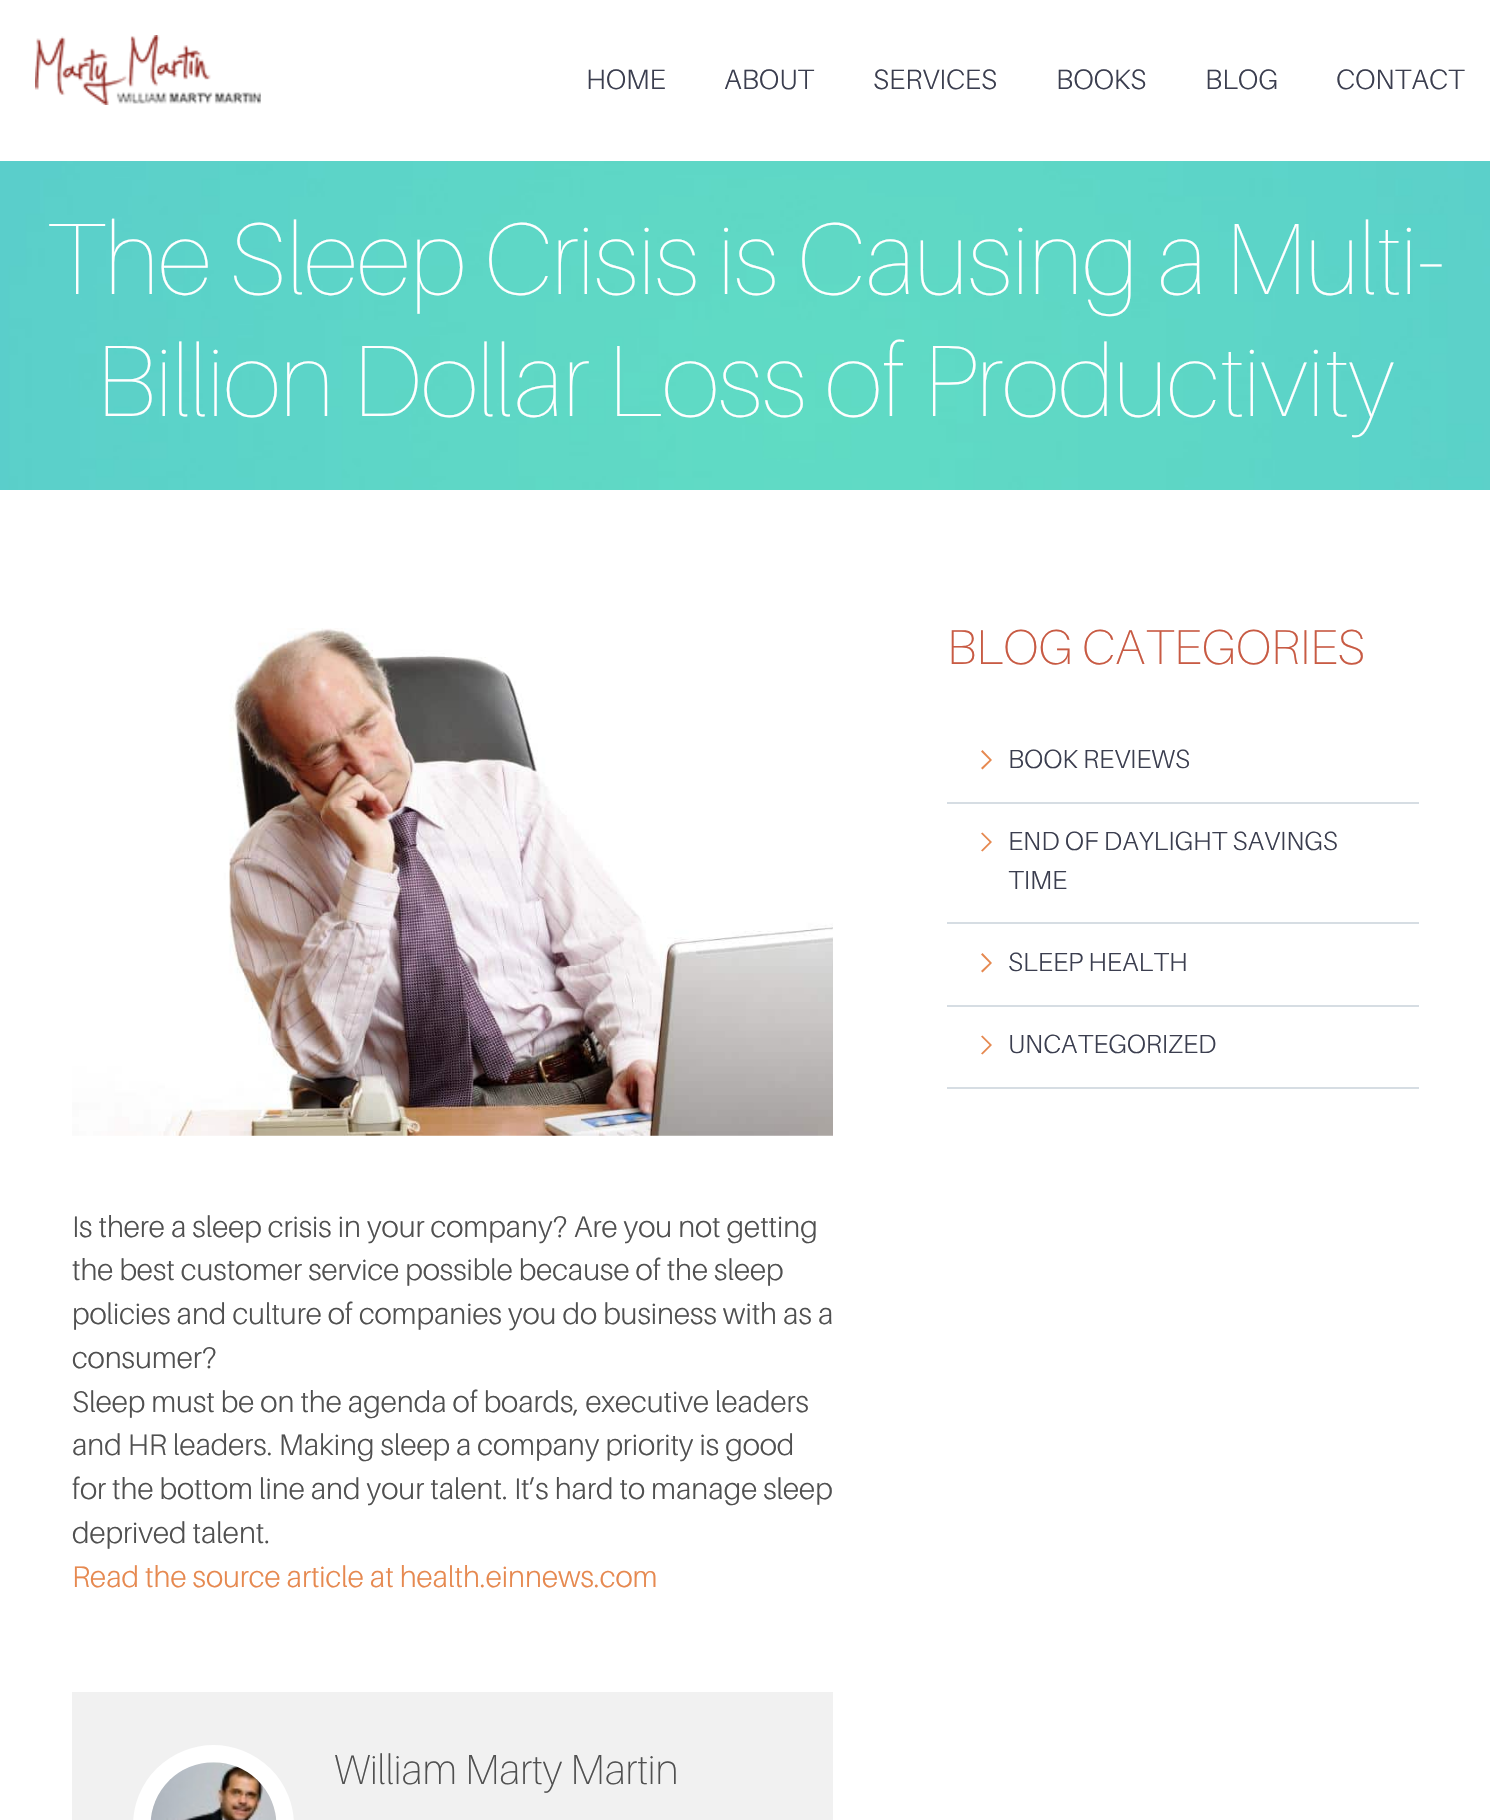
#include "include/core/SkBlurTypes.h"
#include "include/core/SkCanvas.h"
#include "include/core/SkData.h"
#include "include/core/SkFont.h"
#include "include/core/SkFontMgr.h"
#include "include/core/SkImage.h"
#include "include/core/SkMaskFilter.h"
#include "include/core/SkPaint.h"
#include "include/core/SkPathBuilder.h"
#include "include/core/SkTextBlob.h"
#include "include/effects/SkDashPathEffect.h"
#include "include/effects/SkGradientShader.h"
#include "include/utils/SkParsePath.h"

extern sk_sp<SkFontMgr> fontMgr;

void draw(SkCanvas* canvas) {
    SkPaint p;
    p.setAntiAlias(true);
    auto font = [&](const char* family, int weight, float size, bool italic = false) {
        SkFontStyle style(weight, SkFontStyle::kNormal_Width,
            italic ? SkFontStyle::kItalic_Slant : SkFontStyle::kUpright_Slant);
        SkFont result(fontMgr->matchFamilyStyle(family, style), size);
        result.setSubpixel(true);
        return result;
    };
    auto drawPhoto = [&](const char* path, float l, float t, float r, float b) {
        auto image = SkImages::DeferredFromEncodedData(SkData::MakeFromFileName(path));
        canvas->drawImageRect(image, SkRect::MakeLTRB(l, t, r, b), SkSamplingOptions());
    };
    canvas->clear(0xFFFFFFFF);
    drawPhoto("media/1.png", 35, 35, 261, 105);
    auto font1 = font("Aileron", 300, 28);
    p.setColor(0xFF3B3E4F);
    {
        const struct { const char* s; float x, y; } items[] = {
            {"HOME", 586, 89},
            {"ABOUT", 724, 89},
            {"SERVICES", 873, 89},
            {"BOOKS", 1056, 89},
            {"BLOG", 1205, 89},
            {"CONTACT", 1336, 89},
        };
        for (auto [s, x, y] : items) {
            canvas->drawString(s, x, y, font1, p);
        }
    }
    drawPhoto("media/2.png", 0, 161, 1490, 490);
    auto font2 = font("Aileron", 200, 101.5f);
    p.setColor(0xFFFFFFFF);
    canvas->drawString("The Sleep Crisis is Causing a Multi-", 46, 294, font2, p);
    canvas->drawString("Billion Dollar Loss of Productivity", 96, 416, font2, p);
    auto font3 = font("Aileron", 100, 49);
    p.setColor(0xFFC85B44);
    canvas->drawString("BLOG CATEGORIES", 947, 664, font3, p);
    p.setColor(0xFFD6DDE3);
    canvas->drawRect(SkRect::MakeLTRB(947, 802, 1419, 804), p);
    p.setColor(0xFFE68950);
    canvas->drawPath(SkPathBuilder().moveTo(982.5f, 750).lineTo(981, 751.5f).lineTo(989.5f, 760).lineTo(981, 768).lineTo(982.5f, 769.5f).lineTo(992, 760).close().detach(), p);
    auto font4 = font("Aileron", 300, 26.25f);
    p.setColor(0xFF3B3E4F);
    canvas->drawString("BOOK REVIEWS", 1008, 768, font4, p);
    p.setColor(0xFFD6DDE3);
    canvas->drawRect(SkRect::MakeLTRB(947, 922, 1419, 924), p);
    p.setColor(0xFFE68950);
    canvas->drawPath(SkPathBuilder().moveTo(982.5f, 832.5f).lineTo(981, 833.5f).lineTo(989.5f, 842).lineTo(981, 850.5f).lineTo(982.5f, 851.5f).lineTo(992, 842).close().detach(), p);
    p.setColor(0xFF3B3E4F);
    canvas->drawString("END OF DAYLIGHT SAVINGS", 1008, 850, font4, p);
    canvas->drawString("TIME", 1008, 889, font4, p);
    p.setColor(0xFFD6DDE3);
    canvas->drawRect(SkRect::MakeLTRB(947, 1005, 1419, 1007), p);
    p.setColor(0xFFE68950);
    canvas->drawPath(SkPathBuilder().moveTo(982.5f, 953).lineTo(981, 954.5f).lineTo(989.5f, 963).lineTo(981, 971).lineTo(982.5f, 972.5f).lineTo(992, 963).close().detach(), p);
    p.setColor(0xFF3B3E4F);
    canvas->drawString("SLEEP HEALTH", 1008, 971, font4, p);
    p.setColor(0xFFD6DDE3);
    canvas->drawRect(SkRect::MakeLTRB(947, 1087, 1419, 1089), p);
    p.setColor(0xFFE68950);
    canvas->drawPath(SkPathBuilder().moveTo(982.5f, 1035.5f).lineTo(981, 1036.5f).lineTo(989.5f, 1045).lineTo(981, 1053.5f).lineTo(982.5f, 1054.5f).lineTo(992, 1045).close().detach(), p);
    p.setColor(0xFF3B3E4F);
    canvas->drawString("UNCATEGORIZED", 1008, 1053, font4, p);
    drawPhoto("media/3.png", 72, 628, 833, 1136);
    auto font5 = font("Aileron", 300, 29.75f);
    p.setColor(0xFF505050);
    {
        const struct { const char* s; float x, y; } items[] = {
            {"Is there a sleep crisis in your company? Are you not getting", 72, 1237},
            {"the best customer service possible because of the sleep", 72, 1280},
            {"policies and culture of companies you do business with as a", 72, 1324},
            {"consumer?", 72, 1368},
            {"Sleep must be on the agenda of boards, executive leaders", 72, 1412},
            {"and HR leaders. Making sleep a company priority is good", 72, 1455},
            {"for the bottom line and your talent. It’s hard to manage sleep", 72, 1499},
            {"deprived talent.", 72, 1543},
        };
        for (auto [s, x, y] : items) {
            canvas->drawString(s, x, y, font5, p);
        }
    }
    p.setColor(0xFFE68950);
    canvas->drawString("Read the source article at health.einnews.com", 72, 1587, font5, p);
    p.setColor(0xFFF1F1F1);
    canvas->drawRect(SkRect::MakeLTRB(72, 1692, 833, 1820), p);
    p.setStyle(SkPaint::kStroke_Style);
    p.setStrokeWidth(18);
    p.setColor(0xFFFFFFFF);
    canvas->drawCircle(213.5f, 1825.5f, 71.5f, p);
    drawPhoto("media/4.png", 150, 1762, 277, 1820);
    auto font6 = font("Aileron", 100, 42);
    p.setStyle(SkPaint::kFill_Style);
    p.setColor(0xFF505050);
    canvas->drawString("William Marty Martin", 334, 1784, font6, p);
}
